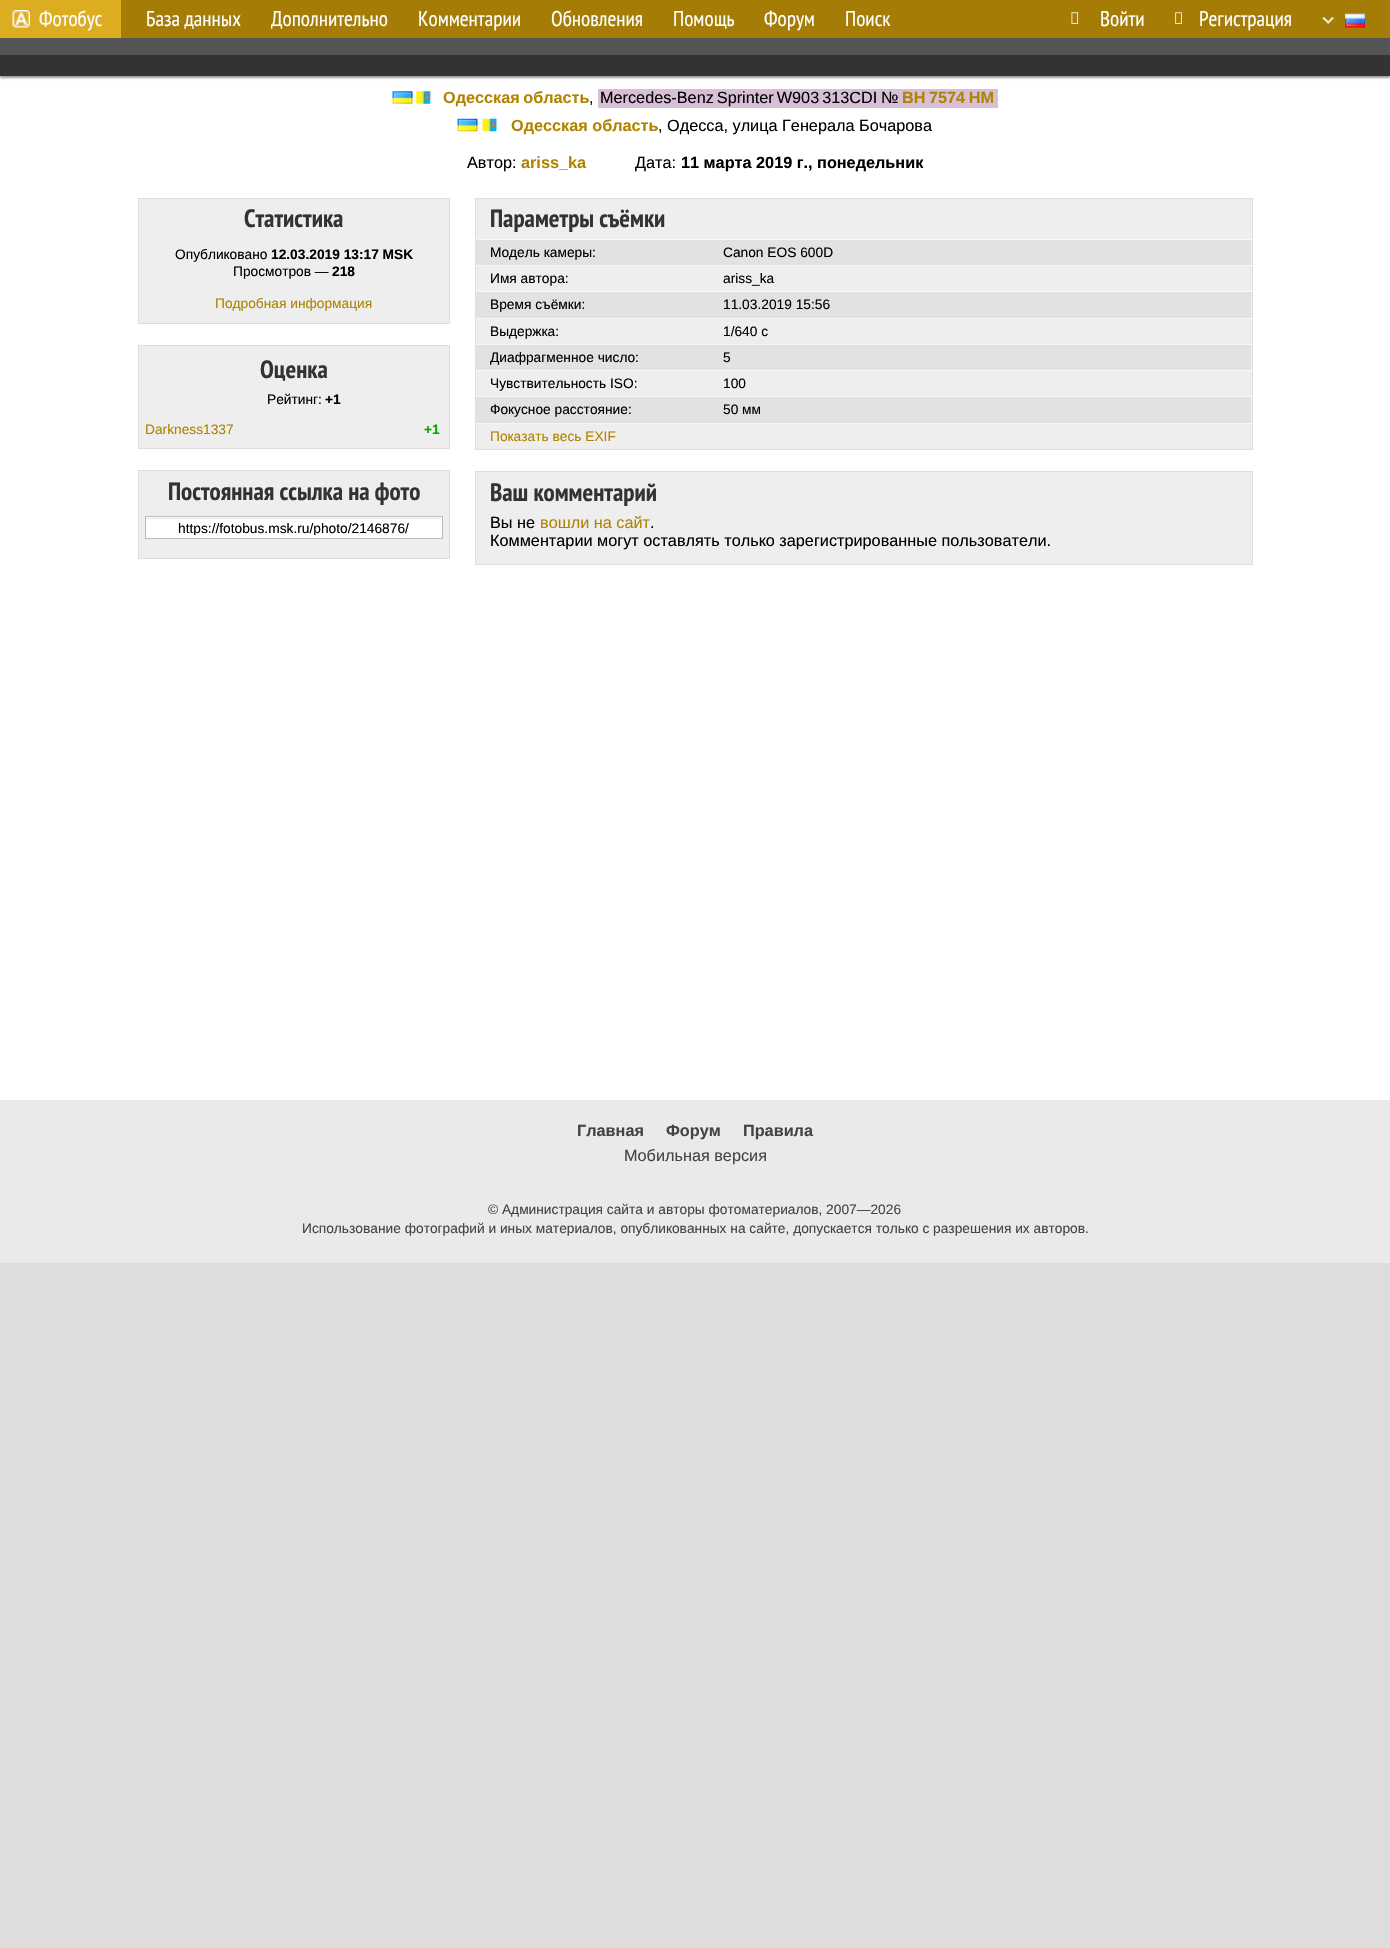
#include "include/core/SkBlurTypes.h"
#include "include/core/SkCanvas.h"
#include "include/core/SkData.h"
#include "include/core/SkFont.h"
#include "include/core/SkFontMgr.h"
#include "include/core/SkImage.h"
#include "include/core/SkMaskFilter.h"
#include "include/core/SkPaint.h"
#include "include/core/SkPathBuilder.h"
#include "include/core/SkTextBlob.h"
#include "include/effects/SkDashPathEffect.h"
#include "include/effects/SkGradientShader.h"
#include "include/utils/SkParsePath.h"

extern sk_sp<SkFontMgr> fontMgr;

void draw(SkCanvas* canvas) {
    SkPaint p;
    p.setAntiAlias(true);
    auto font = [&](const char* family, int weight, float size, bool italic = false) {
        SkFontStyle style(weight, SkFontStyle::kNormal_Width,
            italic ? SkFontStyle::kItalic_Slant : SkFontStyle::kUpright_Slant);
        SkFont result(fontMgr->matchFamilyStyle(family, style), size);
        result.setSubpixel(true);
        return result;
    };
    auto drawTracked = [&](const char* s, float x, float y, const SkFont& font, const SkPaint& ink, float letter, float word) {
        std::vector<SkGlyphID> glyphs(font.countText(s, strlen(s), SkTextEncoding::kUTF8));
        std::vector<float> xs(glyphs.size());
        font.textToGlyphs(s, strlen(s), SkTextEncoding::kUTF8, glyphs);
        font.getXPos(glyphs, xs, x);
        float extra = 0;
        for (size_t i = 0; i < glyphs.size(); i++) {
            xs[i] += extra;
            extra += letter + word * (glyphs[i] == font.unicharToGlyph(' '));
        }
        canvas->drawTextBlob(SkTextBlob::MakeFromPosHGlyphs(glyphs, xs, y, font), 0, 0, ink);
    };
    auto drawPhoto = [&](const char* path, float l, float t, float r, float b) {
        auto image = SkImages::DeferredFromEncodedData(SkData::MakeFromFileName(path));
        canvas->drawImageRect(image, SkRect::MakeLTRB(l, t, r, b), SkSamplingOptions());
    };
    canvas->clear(0xFFDDDDDD);
    p.setColor(0xFFA47C06);
    canvas->drawRect(SkRect::MakeLTRB(121, 0, 1390, 38), p);
    p.setColor(0xFFDCAC21);
    canvas->drawRect(SkRect::MakeLTRB(0, 0, 121, 38), p);
    drawPhoto("media/1.png", 12, 10, 30, 28);
    auto font1 = font("PT Sans Narrow", 400, 21.25f);
    p.setColor(0xFFFFFFFF);
    {
        const struct { const char* s; float x, y; } items[] = {
            {"Фотобус", 39, 26},
            {"База данных", 146, 26},
            {"Дополнительно", 271, 26},
            {"Комментарии", 418, 26},
            {"Обновления", 551, 26},
            {"Помощь", 673, 26},
            {"Форум", 764, 26},
            {"Поиск", 845, 26},
        };
        for (auto [s, x, y] : items) {
            canvas->drawString(s, x, y, font1, p);
        }
    }
    drawPhoto("media/2.png", 1071, 12, 1079, 24);
    canvas->drawString("Войти", 1100, 26, font1, p);
    drawPhoto("media/3.png", 1175, 12, 1182, 24);
    canvas->drawString("Регистрация", 1199, 26, font1, p);
    drawPhoto("media/4.png", 1322, 17, 1334, 24);
    drawPhoto("media/5.png", 1345, 13, 1365, 28);
    p.setColor(0xFF555555);
    canvas->drawRect(SkRect::MakeLTRB(0, 38, 1390, 55), p);
    p.setColor(0xFFFFFFFF);
    canvas->drawRect(SkRect::MakeLTRB(0, 76, 1390, 1100), p);
    p.setColor(0x66000000);
    p.setMaskFilter(SkMaskFilter::MakeBlur(kNormal_SkBlurStyle, 1));
    canvas->drawRect(SkRect::MakeLTRB(0, 56, 1390, 78), p);
    p.setMaskFilter(nullptr);
    p.setColor(0xFF333333);
    canvas->drawRect(SkRect::MakeLTRB(0, 55, 1390, 76), p);
    drawPhoto("media/6.png", 392, 91, 413, 104);
    drawPhoto("media/7.png", 416, 91, 432, 104);
    auto font2 = font("Liberation Sans", 700, 16.25f);
    p.setColor(0xFFB08300);
    drawTracked("Одесская область", 443, 103, font2, p, 0, -1);
    auto font3 = font("Liberation Sans", 400, 16.25f);
    p.setColor(0xFF000000);
    canvas->drawString(",", 589, 103, font3, p);
    p.setColor(0xFFD8BFD8);
    canvas->drawRect(SkRect::MakeLTRB(598, 89, 998, 108), p);
    p.setColor(0xFF000000);
    drawTracked("Mercedes-Benz Sprinter W903 313CDI", 600, 103, font3, p, 0, -1.5f);
    canvas->drawString("№", 881, 103, font3, p);
    p.setColor(0xFFB08300);
    drawTracked("BH 7574 HM", 902, 103, font2, p, 0, -1);
    drawPhoto("media/8.png", 457, 118, 478, 132);
    drawPhoto("media/9.png", 482, 118, 498, 132);
    canvas->drawString("Одесская область", 511, 131, font2, p);
    p.setColor(0xFF000000);
    canvas->drawString(", Одесса, улица Генерала Бочарова", 658, 131, font3, p);
    canvas->drawString("Автор:", 467, 168, font3, p);
    p.setColor(0xFFB08300);
    canvas->drawString("ariss_ka", 521, 168, font2, p);
    p.setColor(0xFF000000);
    canvas->drawString("Дата:", 635, 168, font3, p);
    canvas->drawString("11 марта 2019 г., понедельник", 681, 168, font2, p);
    p.setColor(0xFFEEEEEE);
    canvas->drawRect(SkRect::MakeLTRB(138.5f, 198.5f, 449.5f, 323.5f), p);
    p.setStyle(SkPaint::kStroke_Style);
    p.setStrokeWidth(1);
    p.setColor(0xFFDDDDDD);
    canvas->drawRect(SkRect::MakeLTRB(138.5f, 198.5f, 449.5f, 323.5f), p);
    auto font4 = font("PT Sans Narrow", 700, 25);
    p.setStyle(SkPaint::kFill_Style);
    p.setColor(0xFF333333);
    canvas->drawString("Статистика", 244, 227, font4, p);
    auto font5 = font("Liberation Sans", 400, 13.75f);
    p.setColor(0xFF000000);
    canvas->drawString("Опубликовано", 175, 259, font5, p);
    auto font6 = font("Liberation Sans", 700, 13.75f);
    canvas->drawString("12.03.2019 13:17 MSK", 271, 259, font6, p);
    canvas->drawString("Просмотров —", 233, 276, font5, p);
    canvas->drawString("218", 332, 276, font6, p);
    p.setColor(0xFFB08300);
    canvas->drawString("Подробная информация", 215, 308, font5, p);
    p.setColor(0xFFEEEEEE);
    canvas->drawRect(SkRect::MakeLTRB(138.5f, 345.5f, 449.5f, 448.5f), p);
    p.setStyle(SkPaint::kStroke_Style);
    p.setColor(0xFFDDDDDD);
    canvas->drawRect(SkRect::MakeLTRB(138.5f, 345.5f, 449.5f, 448.5f), p);
    p.setStyle(SkPaint::kFill_Style);
    p.setColor(0xFF333333);
    canvas->drawString("Оценка", 260, 378, font4, p);
    p.setColor(0xFF000000);
    canvas->drawString("Рейтинг:", 267, 404, font5, p);
    canvas->drawString("+1", 325, 404, font6, p);
    p.setColor(0xFFB08300);
    canvas->drawString("Darkness1337", 145, 434, font5, p);
    p.setColor(0xFF00AA00);
    canvas->drawString("+1", 424, 434, font6, p);
    p.setColor(0xFFEEEEEE);
    canvas->drawRect(SkRect::MakeLTRB(138.5f, 470.5f, 449.5f, 558.5f), p);
    p.setStyle(SkPaint::kStroke_Style);
    p.setColor(0xFFDDDDDD);
    canvas->drawRect(SkRect::MakeLTRB(138.5f, 470.5f, 449.5f, 558.5f), p);
    p.setStyle(SkPaint::kFill_Style);
    p.setColor(0xFF333333);
    canvas->drawString("Постоянная ссылка на фото", 168, 500, font4, p);
    p.setColor(0xFFFFFFFF);
    canvas->drawRect(SkRect::MakeLTRB(146, 517, 442, 538), p);
    p.setColor(0xFFE6E6E6);
    canvas->drawRect(SkRect::MakeLTRB(146, 518, 441, 519), p);
    p.setStyle(SkPaint::kStroke_Style);
    p.setColor(0xFFBBBBBB);
    canvas->drawRect(SkRect::MakeLTRB(145.5f, 516.5f, 442.5f, 538.5f), p);
    canvas->save();
    canvas->clipRect(SkRect::MakeLTRB(150, 520, 438, 535));
    p.setStyle(SkPaint::kFill_Style);
    p.setColor(0xFF000000);
    canvas->drawString("https://fotobus.msk.ru/photo/2146876/", 178, 533, font5, p);
    canvas->restore();
    p.setColor(0xFFEEEEEE);
    canvas->drawRect(SkRect::MakeLTRB(475.5f, 198.5f, 1252.5f, 449.5f), p);
    p.setStyle(SkPaint::kStroke_Style);
    p.setColor(0xFFDDDDDD);
    canvas->drawRect(SkRect::MakeLTRB(475.5f, 198.5f, 1252.5f, 449.5f), p);
    p.setStyle(SkPaint::kFill_Style);
    p.setColor(0xFF333333);
    canvas->drawString("Параметры съёмки", 490, 227, font4, p);
    p.setColor(0xFFE2E2E2);
    canvas->drawRect(SkRect::MakeLTRB(476, 240, 1251, 265), p);
    p.setColor(0xFF000000);
    canvas->drawString("Модель камеры:", 490, 257, font5, p);
    p.setColor(0xFFF7F7F7);
    canvas->drawRect(SkRect::MakeLTRB(476, 239, 1253, 240), p);
    p.setColor(0xFF000000);
    canvas->drawString("Canon EOS 600D", 723, 257, font5, p);
    canvas->drawString("Имя автора:", 490, 283, font5, p);
    p.setColor(0xFFF7F7F7);
    canvas->drawRect(SkRect::MakeLTRB(476, 265, 1253, 266), p);
    p.setColor(0xFF000000);
    canvas->drawString("ariss_ka", 723, 283, font5, p);
    p.setColor(0xFFE2E2E2);
    canvas->drawRect(SkRect::MakeLTRB(476, 292, 1251, 318), p);
    p.setColor(0xFF000000);
    canvas->drawString("Время съёмки:", 490, 309, font5, p);
    p.setColor(0xFFF7F7F7);
    canvas->drawRect(SkRect::MakeLTRB(476, 291, 1253, 292), p);
    p.setColor(0xFF000000);
    canvas->drawString("11.03.2019 15:56", 723, 309, font5, p);
    canvas->drawString("Выдержка:", 490, 336, font5, p);
    p.setColor(0xFFF7F7F7);
    canvas->drawRect(SkRect::MakeLTRB(476, 318, 1253, 319), p);
    p.setColor(0xFF000000);
    canvas->drawString("1/640 с", 723, 336, font5, p);
    p.setColor(0xFFE2E2E2);
    canvas->drawRect(SkRect::MakeLTRB(476, 345, 1251, 370), p);
    p.setColor(0xFF000000);
    canvas->drawString("Диафрагменное число:", 490, 362, font5, p);
    p.setColor(0xFFF7F7F7);
    canvas->drawRect(SkRect::MakeLTRB(476, 344, 1253, 345), p);
    p.setColor(0xFF000000);
    canvas->drawString("5", 723, 362, font5, p);
    canvas->drawString("Чувствительность ISO:", 490, 388, font5, p);
    p.setColor(0xFFF7F7F7);
    canvas->drawRect(SkRect::MakeLTRB(476, 370, 1253, 371), p);
    p.setColor(0xFF000000);
    canvas->drawString("100", 723, 388, font5, p);
    p.setColor(0xFFE2E2E2);
    canvas->drawRect(SkRect::MakeLTRB(476, 397, 1251, 423), p);
    p.setColor(0xFF000000);
    canvas->drawString("Фокусное расстояние:", 490, 414, font5, p);
    p.setColor(0xFFF7F7F7);
    canvas->drawRect(SkRect::MakeLTRB(476, 396, 1253, 397), p);
    p.setColor(0xFF000000);
    canvas->drawString("50 мм", 723, 414, font5, p);
    p.setColor(0xFFF7F7F7);
    canvas->drawRect(SkRect::MakeLTRB(476, 423, 1253, 424), p);
    p.setColor(0xFFB08300);
    canvas->drawString("Показать весь EXIF", 490, 441, font5, p);
    p.setColor(0xFFEEEEEE);
    canvas->drawRect(SkRect::MakeLTRB(475.5f, 471.5f, 1252.5f, 564.5f), p);
    p.setStyle(SkPaint::kStroke_Style);
    p.setColor(0xFFDDDDDD);
    canvas->drawRect(SkRect::MakeLTRB(475.5f, 471.5f, 1252.5f, 564.5f), p);
    p.setStyle(SkPaint::kFill_Style);
    p.setColor(0xFF333333);
    canvas->drawString("Ваш комментарий", 490, 501, font4, p);
    p.setColor(0xFF000000);
    canvas->drawString("Вы не", 490, 528, font3, p);
    p.setColor(0xFFB08300);
    canvas->drawString("вошли на сайт", 540, 528, font3, p);
    p.setColor(0xFF000000);
    canvas->drawString(".", 650, 528, font3, p);
    canvas->drawString("Комментарии могут оставлять только зарегистрированные пользователи.", 490, 546, font3, p);
    p.setColor(0xFFEAEAEA);
    canvas->drawRect(SkRect::MakeLTRB(0, 1100, 1390, 1263), p);
    p.setColor(0xFF444444);
    {
        const struct { const char* s; float x, y; } items[] = {
            {"Главная", 577, 1136},
            {"Форум", 666, 1136},
            {"Правила", 743, 1136},
        };
        for (auto [s, x, y] : items) {
            canvas->drawString(s, x, y, font2, p);
        }
    }
    canvas->drawString("Мобильная версия", 624, 1161, font3, p);
    canvas->drawString("© Администрация сайта и авторы фотоматериалов, 2007—2026", 488, 1214, font5, p);
    canvas->drawString("Использование фотографий и иных материалов, опубликованных на сайте, допускается только с разрешения их авторов.", 302, 1233, font5, p);
}
